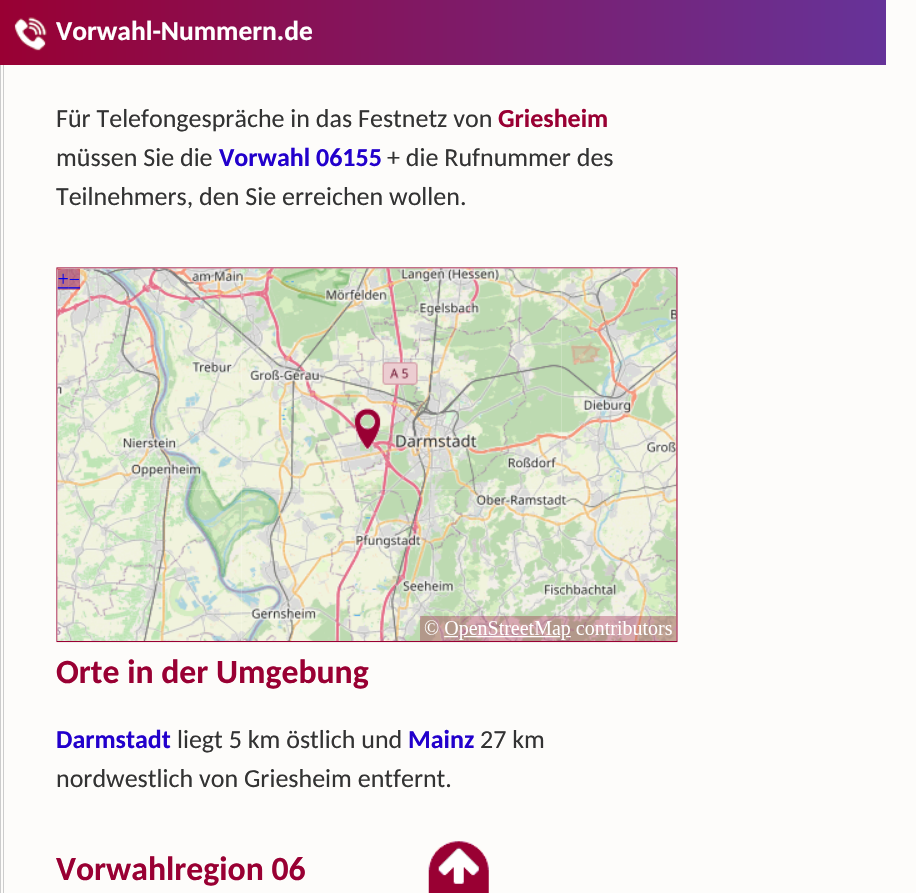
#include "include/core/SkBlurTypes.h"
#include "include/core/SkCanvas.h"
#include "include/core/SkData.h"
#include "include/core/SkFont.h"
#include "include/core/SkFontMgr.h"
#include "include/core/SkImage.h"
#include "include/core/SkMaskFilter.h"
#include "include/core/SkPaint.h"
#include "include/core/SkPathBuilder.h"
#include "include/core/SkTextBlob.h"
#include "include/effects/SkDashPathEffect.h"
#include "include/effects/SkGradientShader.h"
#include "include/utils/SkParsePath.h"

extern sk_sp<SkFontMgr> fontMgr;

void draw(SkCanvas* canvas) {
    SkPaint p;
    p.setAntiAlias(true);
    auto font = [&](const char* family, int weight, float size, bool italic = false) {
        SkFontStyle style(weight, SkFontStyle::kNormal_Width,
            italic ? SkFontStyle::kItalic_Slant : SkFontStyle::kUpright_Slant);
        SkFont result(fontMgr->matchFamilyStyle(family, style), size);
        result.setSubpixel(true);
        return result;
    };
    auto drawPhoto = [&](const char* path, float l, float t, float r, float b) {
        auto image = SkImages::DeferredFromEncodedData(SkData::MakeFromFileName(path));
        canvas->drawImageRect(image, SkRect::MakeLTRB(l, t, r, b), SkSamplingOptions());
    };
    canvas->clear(0xFFFDFCFA);
    p.setColor(0xFFCCCCCC);
    canvas->drawRect(SkRect::MakeLTRB(0, 65, 1, 893), p);
    canvas->drawRect(SkRect::MakeLTRB(3, 65, 4, 893), p);
    {
        const SkColor colors[] = {0xFF990033, 0xFF663399};
        const float stops[] = {0, 1};
        const SkPoint ends[] = {{0, 33}, {886, 32}};
        p.setShader(SkGradientShader::MakeLinear(ends, colors, stops, 2, SkTileMode::kClamp));
        p.setAlpha(255);
    }
    canvas->drawRect(SkRect::MakeLTRB(0, 0, 886, 65), p);
    drawPhoto("media/1.png", 14, 17, 47, 51);
    auto font1 = font("Carlito", 700, 27.5f);
    p.setShader(nullptr);
    p.setColor(0xFFFFFFFF);
    canvas->drawString("Vorwahl-Nummern.de", 56, 40, font1, p);
    auto font2 = font("Carlito", 400, 26);
    p.setColor(0xFF333333);
    canvas->drawString("Für Telefongespräche in das Festnetz von", 56, 127, font2, p);
    auto font3 = font("Carlito", 700, 26);
    p.setColor(0xFF990033);
    canvas->drawString("Griesheim", 498, 127, font3, p);
    p.setColor(0xFF333333);
    canvas->drawString("müssen Sie die", 56, 166, font2, p);
    p.setColor(0xFF2200CC);
    canvas->drawString("Vorwahl 06155", 219, 166, font3, p);
    p.setColor(0xFF333333);
    canvas->drawString("+ die Rufnummer des", 387, 166, font2, p);
    canvas->drawString("Teilnehmers, den Sie erreichen wollen.", 56, 205, font2, p);
    drawPhoto("media/2.png", 56, 267, 678, 643);
    auto font4 = font("Carlito", 700, 33.75f);
    p.setColor(0xFF990033);
    canvas->drawString("Orte in der Umgebung", 56, 683, font4, p);
    p.setColor(0xFF2200CC);
    canvas->drawString("Darmstadt", 56, 748, font3, p);
    p.setColor(0xFF333333);
    canvas->drawString("liegt 5 km östlich und", 177, 748, font2, p);
    p.setColor(0xFF2200CC);
    canvas->drawString("Mainz", 408, 748, font3, p);
    p.setColor(0xFF333333);
    canvas->drawString("27 km", 480, 748, font2, p);
    canvas->drawString("nordwestlich von Griesheim entfernt.", 56, 787, font2, p);
    p.setColor(0xFF990033);
    canvas->drawString("Vorwahlregion 06", 56, 880, font4, p);
    drawPhoto("media/3.png", 428, 841, 489, 893);
}
